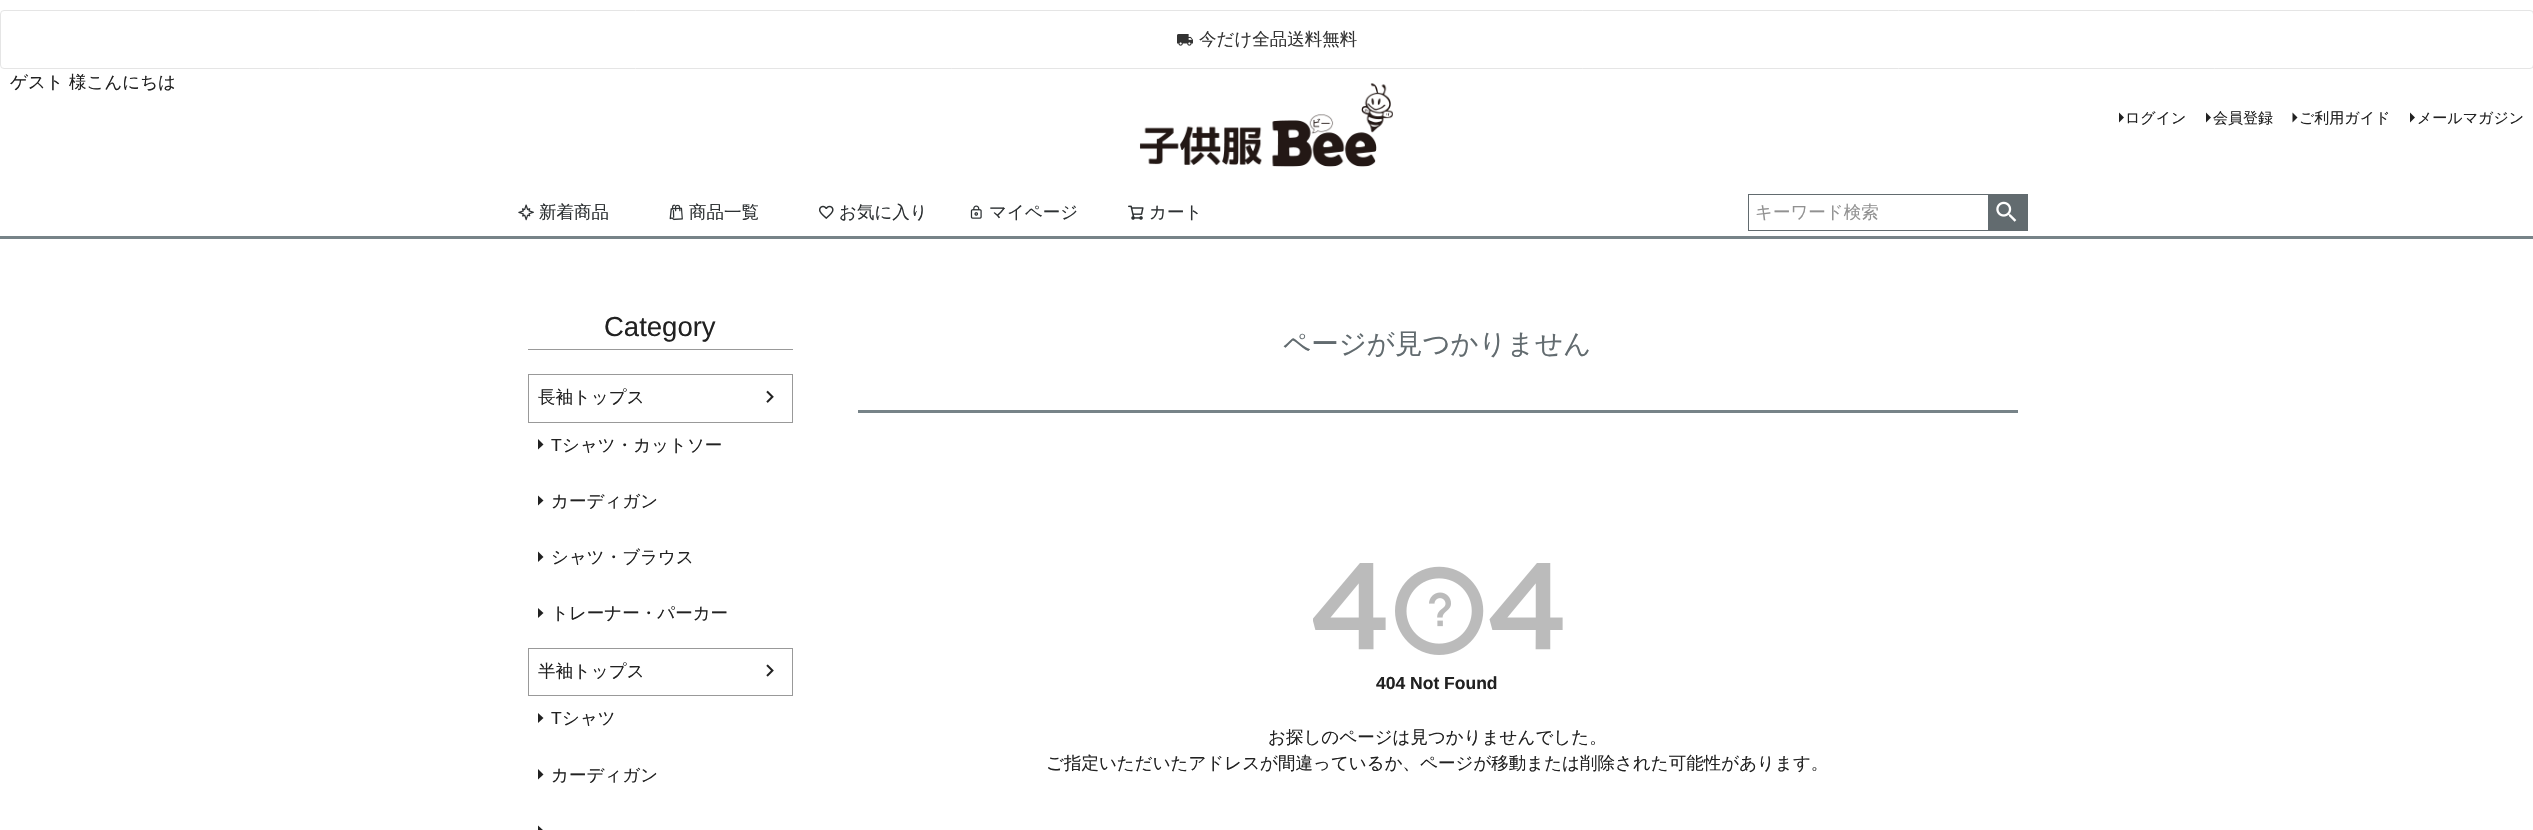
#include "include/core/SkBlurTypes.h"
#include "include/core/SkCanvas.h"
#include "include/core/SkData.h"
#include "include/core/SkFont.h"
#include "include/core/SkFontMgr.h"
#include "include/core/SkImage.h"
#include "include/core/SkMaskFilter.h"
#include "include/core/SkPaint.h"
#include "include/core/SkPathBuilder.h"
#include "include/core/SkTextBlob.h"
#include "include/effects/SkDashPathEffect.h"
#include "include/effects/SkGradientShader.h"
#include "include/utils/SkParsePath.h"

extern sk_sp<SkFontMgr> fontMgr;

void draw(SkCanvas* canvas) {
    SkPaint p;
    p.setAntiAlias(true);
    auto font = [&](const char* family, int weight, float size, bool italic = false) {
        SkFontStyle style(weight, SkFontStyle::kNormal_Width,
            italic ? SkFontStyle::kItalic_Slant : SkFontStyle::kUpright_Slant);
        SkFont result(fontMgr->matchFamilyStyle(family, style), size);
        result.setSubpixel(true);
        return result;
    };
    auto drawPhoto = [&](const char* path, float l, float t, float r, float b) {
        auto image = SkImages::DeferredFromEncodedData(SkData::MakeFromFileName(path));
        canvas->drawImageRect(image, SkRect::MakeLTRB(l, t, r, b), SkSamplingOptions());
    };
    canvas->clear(0xFFFFFFFF);
    p.setStyle(SkPaint::kStroke_Style);
    p.setStrokeWidth(1);
    p.setColor(0xFFE5E5E5);
    canvas->drawRoundRect(SkRect::MakeLTRB(0.5f, 10.5f, 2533.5f, 68.5f), 3.5f, 3.5f, p);
    drawPhoto("media/1.png", 1177, 34, 1193, 46);
    auto font1 = font("WenQuanYi Zen Hei", 500, 17.5f);
    p.setStyle(SkPaint::kFill_Style);
    p.setColor(0xFF333333);
    canvas->drawString("今だけ全品送料無料", 1199, 45, font1, p);
    p.setColor(0xFF212121);
    canvas->drawString("ゲスト 様こんにちは", 10, 88, font1, p);
    drawPhoto("media/2.png", 1139, 83, 1393, 167);
    canvas->drawPath(SkPathBuilder().moveTo(2119, 122.5f).lineTo(2119, 112.5f).lineTo(2124, 117.5f).close().detach(), p);
    auto font2 = font("WenQuanYi Zen Hei", 500, 15);
    canvas->drawString("ログイン", 2125, 123, font2, p);
    canvas->drawPath(SkPathBuilder().moveTo(2206, 122.5f).lineTo(2206, 112.5f).lineTo(2211, 117.5f).close().detach(), p);
    canvas->drawString("会員登録", 2213, 123, font2, p);
    canvas->drawPath(SkPathBuilder().moveTo(2292.5f, 122.5f).lineTo(2292.5f, 112.5f).lineTo(2297.5f, 117.5f).close().detach(), p);
    canvas->drawString("ご利用ガイド", 2299, 123, font2, p);
    canvas->drawPath(SkPathBuilder().moveTo(2410, 122.5f).lineTo(2410, 112.5f).lineTo(2415, 117.5f).close().detach(), p);
    canvas->drawString("メールマガジン", 2417, 123, font2, p);
    p.setColor(0xFF778388);
    canvas->drawRect(SkRect::MakeLTRB(0, 236, 2533, 239), p);
    drawPhoto("media/3.png", 518, 204, 534, 221);
    p.setColor(0xFF2D3133);
    canvas->drawString("新着商品", 539, 218, font1, p);
    drawPhoto("media/4.png", 669, 204, 683, 221);
    canvas->drawString("商品一覧", 689, 218, font1, p);
    drawPhoto("media/5.png", 819, 205, 834, 219);
    canvas->drawString("お気に入り", 839, 218, font1, p);
    drawPhoto("media/6.png", 970, 205, 982, 219);
    canvas->drawString("マイページ", 989, 218, font1, p);
    drawPhoto("media/7.png", 1128, 205, 1144, 220);
    canvas->drawString("カート", 1149, 218, font1, p);
    p.setColor(0xFF626B6F);
    canvas->drawRect(SkRect::MakeLTRB(1748, 194, 2028, 231), p);
    p.setColor(0xFFFFFFFF);
    canvas->drawRect(SkRect::MakeLTRB(1749, 195, 1988, 230), p);
    p.setColor(0xFF919191);
    canvas->drawString("キーワード検索", 1755, 218, font1, p);
    drawPhoto("media/8.png", 1996, 201, 2017, 222);
    p.setColor(0xFF999999);
    canvas->drawRect(SkRect::MakeLTRB(528, 349, 793, 350), p);
    auto font3 = font("Liberation Sans", 400, 27.5f);
    p.setColor(0xFF212121);
    canvas->drawString("Category", 604, 336, font3, p);
    p.setStyle(SkPaint::kStroke_Style);
    p.setColor(0xFF999999);
    canvas->drawRect(SkRect::MakeLTRB(528.5f, 374.5f, 792.5f, 422.5f), p);
    p.setStyle(SkPaint::kFill_Style);
    p.setColor(0xFF212121);
    canvas->drawString("長袖トップス", 538, 403, font1, p);
    drawPhoto("media/9.png", 766, 390, 774, 403);
    canvas->drawPath(SkPathBuilder().moveTo(538, 449.5f).lineTo(543.5f, 444.5f).lineTo(538, 439).close().detach(), p);
    auto font4 = font("Liberation Sans", 400, 17.5f);
    canvas->drawString("T", 551, 451, font4, p);
    canvas->drawString("シャツ・カットソー", 562, 451, font1, p);
    canvas->drawPath(SkPathBuilder().moveTo(538, 505.5f).lineTo(543.5f, 500.5f).lineTo(538, 495.5f).close().detach(), p);
    canvas->drawString("カーディガン", 551, 507, font1, p);
    canvas->drawPath(SkPathBuilder().moveTo(538, 562).lineTo(543.5f, 557).lineTo(538, 551.5f).close().detach(), p);
    canvas->drawString("シャツ・ブラウス", 551, 563, font1, p);
    canvas->drawPath(SkPathBuilder().moveTo(538, 618).lineTo(543.5f, 613).lineTo(538, 608).close().detach(), p);
    canvas->drawString("トレーナー・パーカー", 551, 619, font1, p);
    p.setStyle(SkPaint::kStroke_Style);
    p.setColor(0xFF999999);
    canvas->drawRect(SkRect::MakeLTRB(528.5f, 648.5f, 792.5f, 695.5f), p);
    p.setStyle(SkPaint::kFill_Style);
    p.setColor(0xFF212121);
    canvas->drawString("半袖トップス", 538, 677, font1, p);
    drawPhoto("media/10.png", 766, 664, 774, 677);
    canvas->drawPath(SkPathBuilder().moveTo(538, 723).lineTo(543.5f, 718).lineTo(538, 713).close().detach(), p);
    canvas->drawString("T", 551, 724, font4, p);
    canvas->drawString("シャツ", 562, 724, font1, p);
    canvas->drawPath(SkPathBuilder().moveTo(538, 779.5f).lineTo(543.5f, 774.5f).lineTo(538, 769).close().detach(), p);
    canvas->drawString("カーディガン", 551, 781, font1, p);
    canvas->drawPath(SkPathBuilder().moveTo(538, 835.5f).lineTo(543.5f, 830.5f).lineTo(538, 825.5f).close().detach(), p);
    p.setColor(0xFF778388);
    canvas->drawRect(SkRect::MakeLTRB(858, 410, 2018, 413), p);
    auto font5 = font("WenQuanYi Zen Hei", 500, 27.5f);
    p.setColor(0xFF626B6F);
    canvas->drawString("ページが見つかりません", 1283, 353, font5, p);
    drawPhoto("media/11.png", 1313, 563, 1563, 655);
    auto font6 = font("Liberation Sans", 700, 17.5f);
    p.setColor(0xFF212121);
    canvas->drawString("404 Not Found", 1376, 689, font6, p);
    canvas->drawString("お探しのページは見つかりませんでした。", 1268, 743, font1, p);
    canvas->drawString("ご指定いただいたアドレスが間違っているか、ページが移動または削除された可能性があります。", 1046, 769, font1, p);
}
